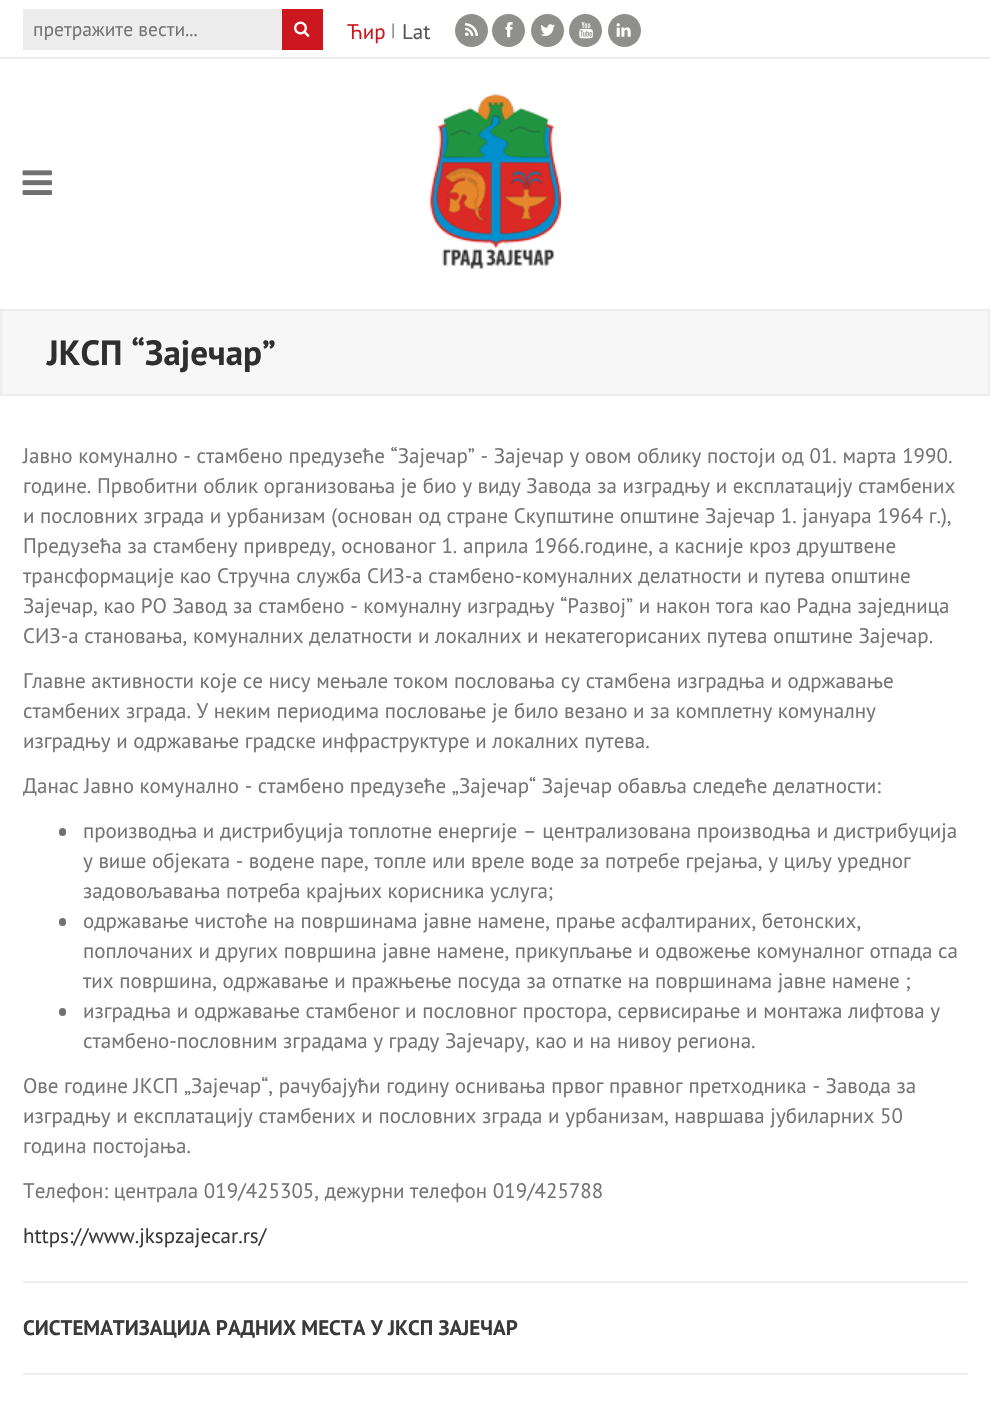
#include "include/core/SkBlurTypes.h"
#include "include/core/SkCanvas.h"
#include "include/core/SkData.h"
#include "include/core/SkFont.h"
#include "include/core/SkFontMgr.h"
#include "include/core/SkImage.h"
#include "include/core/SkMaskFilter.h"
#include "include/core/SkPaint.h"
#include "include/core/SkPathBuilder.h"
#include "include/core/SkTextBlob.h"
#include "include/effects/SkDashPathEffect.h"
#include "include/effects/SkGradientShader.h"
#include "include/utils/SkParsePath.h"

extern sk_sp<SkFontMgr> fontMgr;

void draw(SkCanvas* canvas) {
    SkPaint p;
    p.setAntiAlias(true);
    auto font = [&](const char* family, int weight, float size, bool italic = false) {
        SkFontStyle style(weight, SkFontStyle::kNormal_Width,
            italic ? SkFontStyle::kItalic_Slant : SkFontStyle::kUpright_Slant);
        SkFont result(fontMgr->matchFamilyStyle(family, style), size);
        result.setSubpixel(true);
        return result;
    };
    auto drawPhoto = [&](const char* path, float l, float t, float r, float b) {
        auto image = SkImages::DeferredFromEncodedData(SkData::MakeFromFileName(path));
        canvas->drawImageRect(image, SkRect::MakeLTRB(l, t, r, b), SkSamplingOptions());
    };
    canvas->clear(0xFFFFFFFF);
    p.setColor(0xFFEDEDED);
    canvas->drawRect(SkRect::MakeLTRB(0, 57, 990, 59), p);
    canvas->drawRect(SkRect::MakeLTRB(23, 9, 282, 50), p);
    auto font1 = font("PT Sans", 400, 19.5f);
    p.setColor(0xFF757575);
    canvas->drawString("претражите вести...", 33, 36, font1, p);
    p.setColor(0xFFCC171E);
    canvas->drawRect(SkRect::MakeLTRB(282, 9, 323, 50), p);
    drawPhoto("media/1.png", 294, 21, 310, 37);
    auto font2 = font("PT Sans", 400, 21);
    canvas->drawString("Ћир", 347, 39, font2, p);
    auto font3 = font("PT Sans", 400, 18);
    p.setColor(0xFF808080);
    canvas->drawString("|", 391, 36, font3, p);
    p.setColor(0xFF555555);
    canvas->drawString("Lat", 402, 39, font2, p);
    p.setColor(0xFF8F8F8C);
    canvas->drawCircle(471.5f, 30.5f, 16.5f, p);
    drawPhoto("media/2.png", 465, 23, 478, 36);
    canvas->drawCircle(508.5f, 30.5f, 16.5f, p);
    drawPhoto("media/3.png", 505, 22, 513, 38);
    canvas->drawCircle(547.5f, 30.5f, 16.5f, p);
    drawPhoto("media/4.png", 540, 24, 555, 36);
    canvas->drawCircle(585.5f, 30.5f, 16.5f, p);
    drawPhoto("media/5.png", 579, 21, 593, 39);
    canvas->drawCircle(624.5f, 30.5f, 16.5f, p);
    drawPhoto("media/6.png", 616, 23, 631, 37);
    drawPhoto("media/7.png", 22, 170, 53, 195);
    drawPhoto("media/8.png", 430, 94, 561, 269);
    p.setColor(0xFFF7F7F7);
    canvas->drawRect(SkRect::MakeLTRB(1, 310, 989, 395), p);
    p.setStyle(SkPaint::kStroke_Style);
    p.setStrokeWidth(2);
    p.setColor(0xFFEDEDED);
    canvas->drawRect(SkRect::MakeLTRB(1, 310, 989, 395), p);
    auto font4 = font("PT Sans", 700, 35);
    p.setStyle(SkPaint::kFill_Style);
    p.setColor(0xFF2F2F2F);
    canvas->drawString("ЈКСП “Зајечар”", 47, 365, font4, p);
    p.setColor(0xFF757575);
    {
        const struct { const char* s; float x, y; } items[] = {
            {"Јавно комунално - стамбено предузеће “Зајечар” - Зајечар у овом облику постоји од 01. марта 1990.", 23, 463},
            {"године. Првобитни облик организовања је био у виду Завода за изградњу и експлатацију стамбених", 23, 493},
            {"и пословних зграда и урбанизам (основан од стране Скупштине општине Зајечар 1. јануара 1964 г.),", 23, 523},
            {"Предузећа за стамбену привреду, основаног 1. априла 1966.године, а касније кроз друштвене", 23, 553},
            {"трансформације као Стручна служба СИЗ-а стамбено-комуналних делатности и путева општине", 23, 583},
            {"Зајечар, као РО Завод за стамбено - комуналну изградњу “Развој” и након тога као Радна заједница", 23, 613},
            {"СИЗ-а становања, комуналних делатности и локалних и некатегорисаних путева општине Зајечар.", 23, 643},
            {"Главне активности које се нису мењале током пословања су стамбена изградња и одржавање", 23, 688},
            {"стамбених зграда. У неким периодима пословање је било везано и за комплетну комуналну", 23, 718},
            {"изградњу и одржавање градске инфраструктуре и локалних путева.", 23, 748},
            {"Данас Јавно комунално - стамбено предузеће „Зајечар“ Зајечар обавља следеће делатности:", 23, 793},
        };
        for (auto [s, x, y] : items) {
            canvas->drawString(s, x, y, font2, p);
        }
    }
    p.setColor(0xFF707070);
    canvas->drawRoundRect(SkRect::MakeLTRB(59, 828, 66, 836), 3.5f, 3.5f, p);
    p.setColor(0xFF757575);
    {
        const struct { const char* s; float x, y; } items[] = {
            {"производња и дистрибуција топлотне енергије – централизована производња и дистрибуција", 83, 838},
            {"у више објеката - водене паре, топле или вреле воде за потребе грејања, у циљу уредног", 83, 868},
            {"задовољавања потреба крајњих корисника услуга;", 83, 898},
        };
        for (auto [s, x, y] : items) {
            canvas->drawString(s, x, y, font2, p);
        }
    }
    p.setColor(0xFF707070);
    canvas->drawRoundRect(SkRect::MakeLTRB(59, 918, 66, 926), 3.5f, 3.5f, p);
    p.setColor(0xFF757575);
    {
        const struct { const char* s; float x, y; } items[] = {
            {"одржавање чистоће на површинама јавне намене, прање асфалтираних, бетонских,", 83, 928},
            {"поплочаних и других површина јавне намене, прикупљање и одвожење комуналног отпада са", 83, 958},
            {"тих површина, одржавање и пражњење посуда за отпатке на површинама јавне намене ;", 83, 988},
        };
        for (auto [s, x, y] : items) {
            canvas->drawString(s, x, y, font2, p);
        }
    }
    p.setColor(0xFF707070);
    canvas->drawRoundRect(SkRect::MakeLTRB(59, 1008, 66, 1016), 3.5f, 3.5f, p);
    p.setColor(0xFF757575);
    {
        const struct { const char* s; float x, y; } items[] = {
            {"изградња и одржавање стамбеног и пословног простора, сервисирање и монтажа лифтова у", 83, 1018},
            {"стамбено-пословним зградама у граду Зајечару, као и на нивоу региона.", 83, 1048},
            {"Ове године ЈКСП „Зајечар“, рачубајући годину оснивања првог правног претходника - Завода за", 23, 1093},
            {"изградњу и експлатацију стамбених и пословних зграда и урбанизам, навршава јубиларних 50", 23, 1123},
            {"година постојања.", 23, 1153},
            {"Телефон: централа 019/425305, дежурни телефон 019/425788", 23, 1198},
        };
        for (auto [s, x, y] : items) {
            canvas->drawString(s, x, y, font2, p);
        }
    }
    p.setColor(0xFF3A3A3A);
    canvas->drawString("https://www.jkspzajecar.rs/", 23, 1243, font2, p);
    p.setColor(0xFFEEEEEE);
    canvas->drawRect(SkRect::MakeLTRB(23, 1281, 968, 1283), p);
    auto font5 = font("PT Sans", 700, 21);
    p.setColor(0xFF3A3A3A);
    canvas->drawString("СИСТЕМАТИЗАЦИЈА РАДНИХ МЕСТА У ЈКСП ЗАЈЕЧАР", 23, 1335, font5, p);
    p.setColor(0xFFEEEEEE);
    canvas->drawRect(SkRect::MakeLTRB(23, 1373, 968, 1375), p);
}
